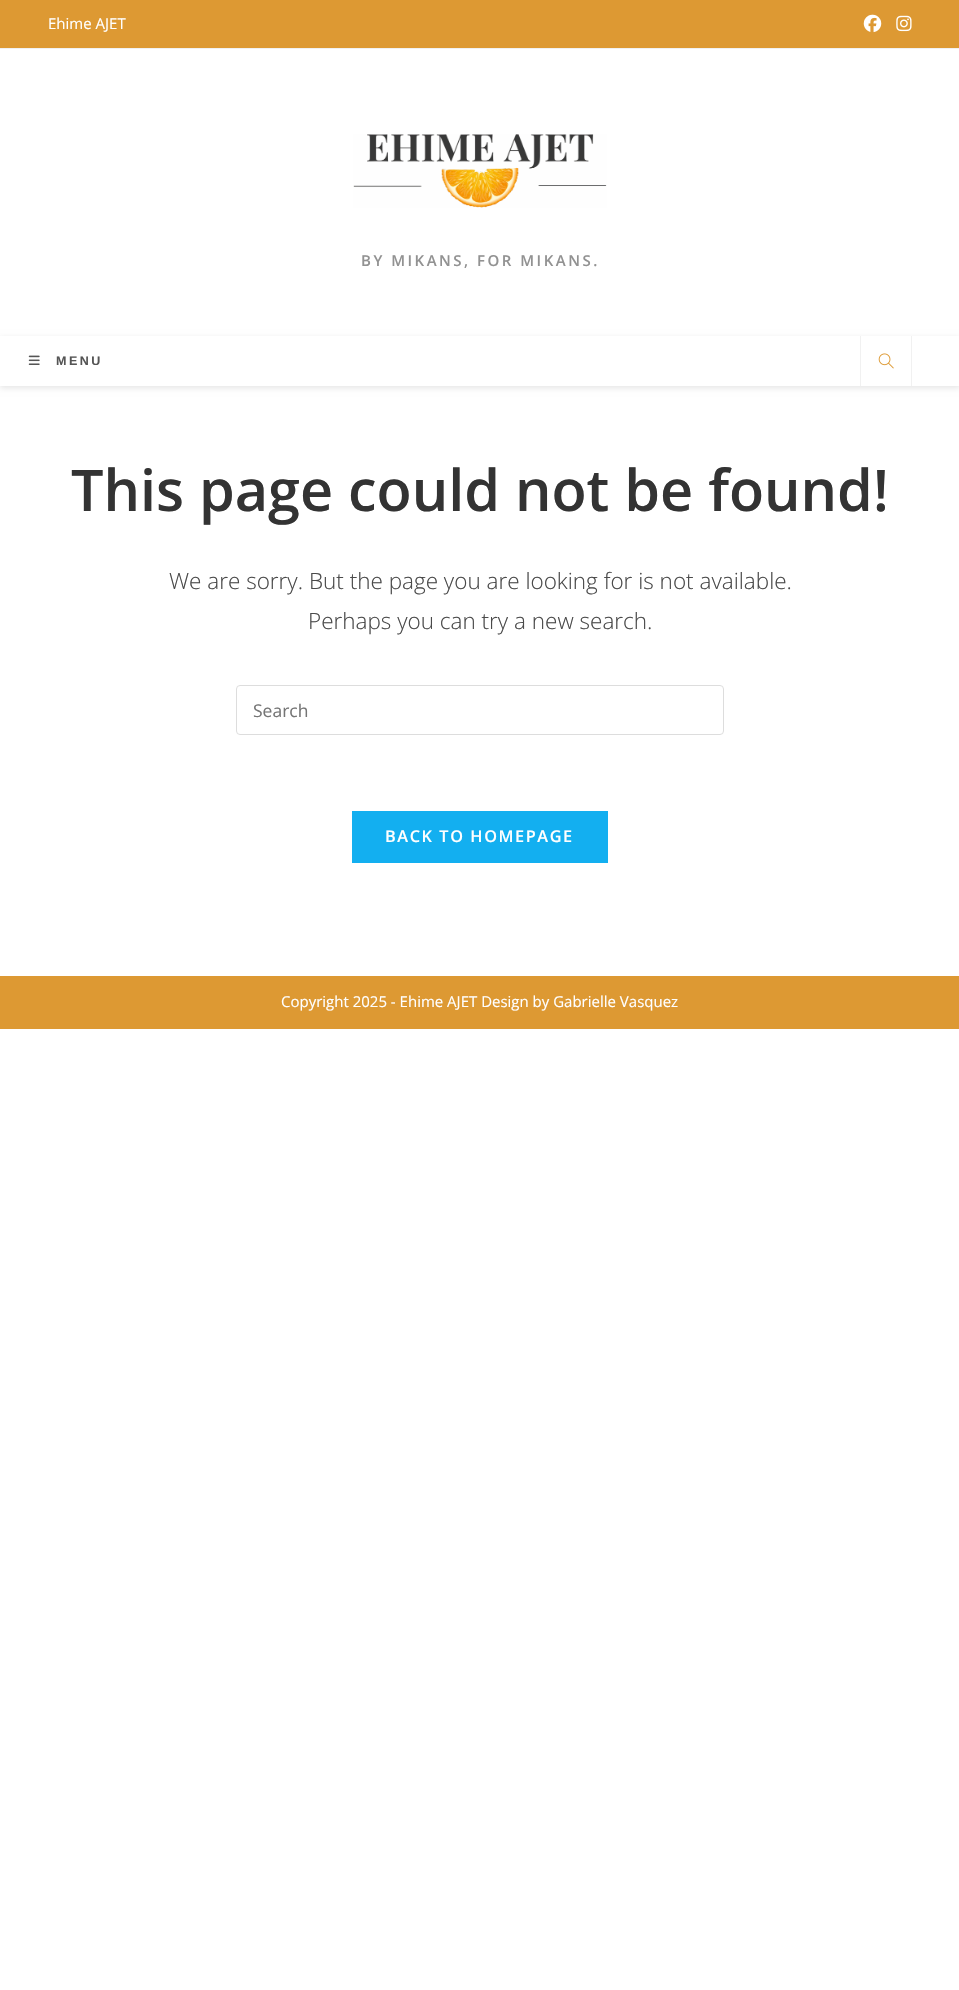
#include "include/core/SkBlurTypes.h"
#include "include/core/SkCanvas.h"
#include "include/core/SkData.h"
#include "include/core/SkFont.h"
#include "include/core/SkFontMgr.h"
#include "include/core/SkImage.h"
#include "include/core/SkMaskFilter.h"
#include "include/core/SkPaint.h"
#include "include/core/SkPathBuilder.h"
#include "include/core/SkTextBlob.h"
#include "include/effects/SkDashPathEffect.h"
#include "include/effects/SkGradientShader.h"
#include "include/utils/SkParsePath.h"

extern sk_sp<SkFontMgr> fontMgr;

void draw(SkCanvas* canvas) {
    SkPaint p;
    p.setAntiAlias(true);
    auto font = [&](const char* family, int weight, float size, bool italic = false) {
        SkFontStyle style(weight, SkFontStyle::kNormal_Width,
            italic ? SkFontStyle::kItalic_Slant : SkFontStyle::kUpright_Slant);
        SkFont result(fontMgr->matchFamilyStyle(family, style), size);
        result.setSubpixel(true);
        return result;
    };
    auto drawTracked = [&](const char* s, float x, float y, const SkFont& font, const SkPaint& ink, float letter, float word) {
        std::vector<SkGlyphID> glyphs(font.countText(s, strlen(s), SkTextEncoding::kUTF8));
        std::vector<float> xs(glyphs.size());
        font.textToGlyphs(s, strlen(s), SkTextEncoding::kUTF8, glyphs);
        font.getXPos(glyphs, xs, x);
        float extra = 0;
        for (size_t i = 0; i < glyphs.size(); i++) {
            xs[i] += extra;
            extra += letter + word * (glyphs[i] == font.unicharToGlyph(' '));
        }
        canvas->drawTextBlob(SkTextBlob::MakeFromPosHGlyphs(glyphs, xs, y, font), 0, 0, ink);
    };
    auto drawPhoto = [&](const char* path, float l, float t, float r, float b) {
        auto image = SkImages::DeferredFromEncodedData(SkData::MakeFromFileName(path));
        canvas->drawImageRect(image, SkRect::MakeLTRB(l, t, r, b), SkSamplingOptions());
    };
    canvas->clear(0xFFFFFFFF);
    p.setColor(0xFFDD9933);
    canvas->drawRect(SkRect::MakeLTRB(0, 0, 959, 48), p);
    p.setColor(0xFFF1F1F1);
    canvas->drawRect(SkRect::MakeLTRB(0, 48, 959, 49), p);
    auto font1 = font("Open Sans", 400, 15);
    p.setColor(0xFFFFFFFF);
    canvas->drawString("Ehime AJET", 48, 29, font1, p);
    drawPhoto("media/1.png", 863, 14, 882, 33);
    drawPhoto("media/2.png", 896, 15, 912, 32);
    drawPhoto("media/3.png", 353, 134, 607, 208);
    auto font2 = font("Open Sans", 600, 15);
    p.setColor(0xFF929292);
    drawTracked("BY MIKANS, FOR MIKANS.", 361, 266, font2, p, 2.5f, 0);
    p.setColor(0x1A000000);
    p.setMaskFilter(SkMaskFilter::MakeBlur(kNormal_SkBlurStyle, 3));
    canvas->drawRect(SkRect::MakeLTRB(0, 338, 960, 388), p);
    p.setMaskFilter(nullptr);
    p.setColor(0xFFFFFFFF);
    canvas->drawRect(SkRect::MakeLTRB(0, 336, 959, 386), p);
    drawPhoto("media/4.png", 28, 355, 40, 365);
    auto font3 = font("Liberation Sans", 700, 12.5f);
    p.setColor(0xFF555555);
    drawTracked("MENU", 56, 365, font3, p, 2.5f, 0);
    p.setColor(0xFFF1F1F1);
    canvas->drawRect(SkRect::MakeLTRB(911, 336, 912, 386), p);
    canvas->drawRect(SkRect::MakeLTRB(860, 336, 861, 386), p);
    drawPhoto("media/5.png", 878, 353, 894, 369);
    auto font4 = font("Open Sans", 600, 57.5f);
    p.setColor(0xFF333333);
    canvas->drawString("This page could not be found!", 71, 511, font4, p);
    auto font5 = font("Open Sans", 300, 22.5f);
    p.setColor(0xFF4A4A4A);
    canvas->drawString("We are sorry. But the page you are looking for is not available.", 169, 589, font5, p);
    canvas->drawString("Perhaps you can try a new search.", 308, 629, font5, p);
    p.setStyle(SkPaint::kStroke_Style);
    p.setStrokeWidth(1);
    p.setColor(0xFFDDDDDD);
    canvas->drawRoundRect(SkRect::MakeLTRB(236.5f, 685.5f, 723.5f, 734.5f), 3.5f, 3.5f, p);
    auto font6 = font("Open Sans", 400, 17.5f);
    p.setStyle(SkPaint::kFill_Style);
    p.setColor(0xFF757575);
    canvas->drawString("Search", 253, 717, font6, p);
    p.setColor(0xFF13AFF0);
    canvas->drawRect(SkRect::MakeLTRB(352, 811, 608, 863), p);
    auto font7 = font("Open Sans", 600, 16.25f);
    p.setColor(0xFFFFFFFF);
    drawTracked("BACK TO HOMEPAGE", 385, 842, font7, p, 1.6f, 0);
    p.setColor(0xFFDD9933);
    canvas->drawRect(SkRect::MakeLTRB(0, 976, 959, 1029), p);
    p.setColor(0xFFFFFFFF);
    canvas->drawString("Copyright 2025 - Ehime AJET Design by Gabrielle Vasquez", 281, 1007, font1, p);
}
